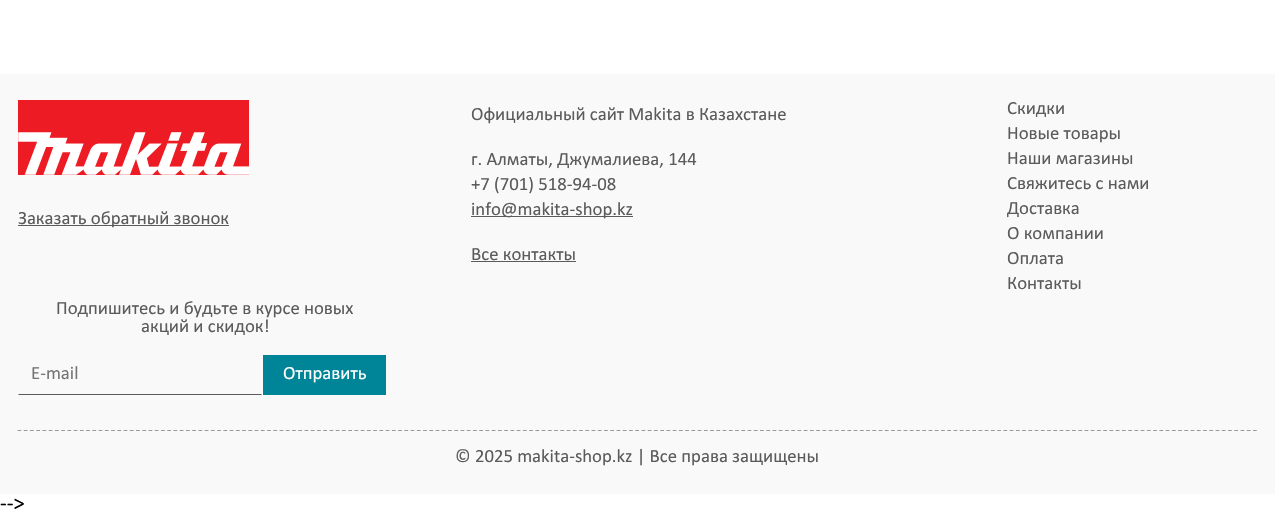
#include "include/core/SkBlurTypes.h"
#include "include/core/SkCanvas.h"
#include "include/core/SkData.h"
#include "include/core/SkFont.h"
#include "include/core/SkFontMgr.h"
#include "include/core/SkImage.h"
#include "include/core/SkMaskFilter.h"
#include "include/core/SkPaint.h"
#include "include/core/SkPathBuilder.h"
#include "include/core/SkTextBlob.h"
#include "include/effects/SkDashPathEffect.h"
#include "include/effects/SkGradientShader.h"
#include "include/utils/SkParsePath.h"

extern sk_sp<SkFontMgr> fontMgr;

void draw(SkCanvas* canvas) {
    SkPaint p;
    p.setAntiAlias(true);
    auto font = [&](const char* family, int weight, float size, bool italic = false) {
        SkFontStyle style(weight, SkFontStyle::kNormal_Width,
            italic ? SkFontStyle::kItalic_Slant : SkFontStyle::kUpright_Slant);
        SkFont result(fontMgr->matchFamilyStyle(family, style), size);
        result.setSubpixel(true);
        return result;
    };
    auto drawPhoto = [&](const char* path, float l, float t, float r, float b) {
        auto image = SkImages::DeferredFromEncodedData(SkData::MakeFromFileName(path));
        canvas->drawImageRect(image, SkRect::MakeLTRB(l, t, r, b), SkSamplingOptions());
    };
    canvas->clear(0xFFFFFFFF);
    p.setColor(0xFFF9F9F9);
    canvas->drawRect(SkRect::MakeLTRB(0, 74, 1275, 494), p);
    drawPhoto("media/1.png", 18, 100, 249, 175);
    p.setColor(0xFF5B5B5B);
    canvas->drawRect(SkRect::MakeLTRB(18, 225, 229, 226), p);
    auto font1 = font("Calibri", 400, 18.75f);
    {
        const struct { const char* s; float x, y; } items[] = {
            {"Заказать обратный звонок", 18, 224},
            {"Официальный сайт Makita в Казахстане", 471, 120},
            {"г. Алматы, Джумалиева, 144", 471, 165},
            {"+7 (701) 518-94-08", 471, 190},
        };
        for (auto [s, x, y] : items) {
            canvas->drawString(s, x, y, font1, p);
        }
    }
    canvas->drawRect(SkRect::MakeLTRB(471, 216, 633, 217), p);
    canvas->drawString("info@makita-shop.kz", 471, 215, font1, p);
    canvas->drawString("Все контакты", 471, 260, font1, p);
    canvas->drawRect(SkRect::MakeLTRB(471, 261, 576, 262), p);
    {
        const struct { const char* s; float x, y; } items[] = {
            {"Скидки", 1007, 114},
            {"Новые товары", 1007, 139},
            {"Наши магазины", 1007, 164},
            {"Свяжитесь с нами", 1007, 189},
            {"Доставка", 1007, 214},
            {"О компании", 1007, 239},
            {"Оплата", 1007, 264},
            {"Контакты", 1007, 289},
            {"Подпишитесь и будьте в курсе новых", 56, 314},
            {"акций и скидок!", 141, 332},
        };
        for (auto [s, x, y] : items) {
            canvas->drawString(s, x, y, font1, p);
        }
    }
    canvas->drawPath(SkPathBuilder().moveTo(262, 395).lineTo(18, 395).lineTo(19, 394).lineTo(261, 394).close().detach(), p);
    p.setColor(0xFF757575);
    canvas->drawString("E-mail", 31, 379, font1, p);
    p.setColor(0xFF008598);
    canvas->drawRect(SkRect::MakeLTRB(263, 355, 386, 395), p);
    p.setColor(0xFFFFFFFF);
    canvas->drawString("Отправить", 283, 379, font1, p);
    p.setStyle(SkPaint::kStroke_Style);
    p.setStrokeWidth(1.2f);
    p.setColor(0xFF999999);
    p.setPathEffect(SkDashPathEffect::Make({{3.75f, 2.49f}}, 0));
    canvas->drawPath(SkPathBuilder().moveTo(17.5f, 430.5f).lineTo(1257.5f, 430.5f).detach(), p);
    p.setPathEffect(nullptr);
    p.setStyle(SkPaint::kFill_Style);
    p.setColor(0xFF5B5B5B);
    canvas->drawString("© 2025 makita-shop.kz | Все права защищены", 455, 462, font1, p);
    auto font2 = font("Calibri", 400, 22);
    p.setColor(0xFF000000);
    canvas->drawString("-->", 0, 510, font2, p);
}
